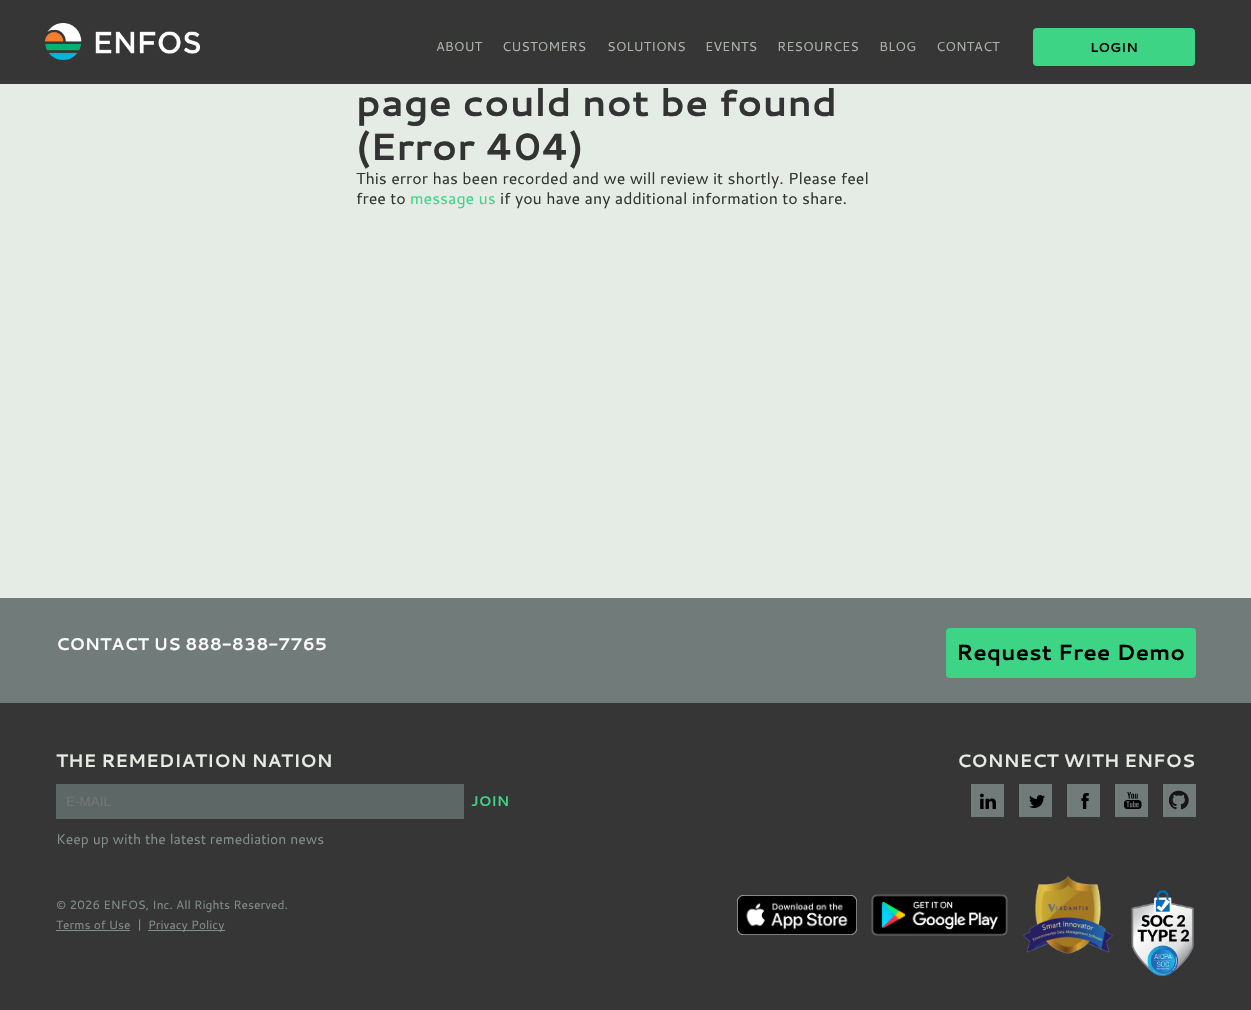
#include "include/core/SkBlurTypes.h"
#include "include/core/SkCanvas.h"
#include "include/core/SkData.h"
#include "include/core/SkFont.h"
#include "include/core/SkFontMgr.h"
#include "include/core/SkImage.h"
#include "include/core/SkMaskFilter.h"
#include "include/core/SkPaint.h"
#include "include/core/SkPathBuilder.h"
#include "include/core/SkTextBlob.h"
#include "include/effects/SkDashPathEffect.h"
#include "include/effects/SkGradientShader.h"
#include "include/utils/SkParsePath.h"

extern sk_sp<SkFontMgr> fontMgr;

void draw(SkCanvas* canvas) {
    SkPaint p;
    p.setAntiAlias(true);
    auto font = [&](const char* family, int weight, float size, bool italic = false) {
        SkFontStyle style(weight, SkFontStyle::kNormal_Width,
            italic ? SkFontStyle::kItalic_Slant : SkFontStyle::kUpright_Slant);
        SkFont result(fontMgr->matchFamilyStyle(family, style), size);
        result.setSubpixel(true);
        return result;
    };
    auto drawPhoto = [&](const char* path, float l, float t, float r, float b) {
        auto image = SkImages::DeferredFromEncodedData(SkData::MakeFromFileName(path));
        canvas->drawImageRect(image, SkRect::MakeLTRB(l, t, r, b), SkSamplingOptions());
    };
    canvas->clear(0xFFE4ECE5);
    p.setColor(0xFF363636);
    canvas->drawRect(SkRect::MakeLTRB(0, 0, 1251, 84), p);
    drawPhoto("media/1.png", 45, 23, 200, 60);
    auto font1 = font("Cantarell", 400, 13);
    p.setColor(0xFFAEB4AC);
    {
        const struct { const char* s; float x, y; } items[] = {
            {"ABOUT", 436, 51},
            {"CUSTOMERS", 502, 51},
            {"SOLUTIONS", 607, 51},
            {"EVENTS", 705, 51},
            {"RESOURCES", 777, 51},
            {"BLOG", 879, 51},
            {"CONTACT", 936, 51},
        };
        for (auto [s, x, y] : items) {
            canvas->drawString(s, x, y, font1, p);
        }
    }
    p.setColor(0xFF3DD585);
    canvas->drawRoundRect(SkRect::MakeLTRB(1033, 28, 1195, 66), 4, 4, p);
    auto font2 = font("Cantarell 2", 700, 13);
    p.setColor(0xFF000000);
    canvas->drawString("LOGIN", 1090, 52, font2, p);
    auto font3 = font("Cantarell", 700, 38);
    p.setColor(0xFF333333);
    canvas->drawString("page could not be found", 356, 116, font3, p);
    canvas->drawString("(Error 404)", 356, 160, font3, p);
    auto font4 = font("Cantarell", 400, 16);
    canvas->drawString("This error has been recorded and we will review it shortly. Please feel", 356, 184, font4, p);
    canvas->drawString("free to", 356, 204, font4, p);
    p.setColor(0xFF3DD585);
    canvas->drawString("message us", 410, 204, font4, p);
    p.setColor(0xFF333333);
    canvas->drawString("if you have any additional information to share.", 500, 204, font4, p);
    p.setColor(0xFF717C7A);
    canvas->drawRect(SkRect::MakeLTRB(0, 598, 1251, 703), p);
    auto font5 = font("Cantarell 2", 700, 17);
    p.setColor(0xFFFBFBFB);
    canvas->drawString("CONTACT US 888-838-7765", 56, 650, font5, p);
    p.setColor(0xFF3DD585);
    canvas->drawRoundRect(SkRect::MakeLTRB(946, 628, 1196, 678), 4, 4, p);
    auto font6 = font("Cantarell 2", 700, 22);
    p.setColor(0xFF000000);
    canvas->drawString("Request Free Demo", 956, 660, font6, p);
    p.setColor(0xFF363636);
    canvas->drawRect(SkRect::MakeLTRB(0, 703, 1251, 1010), p);
    auto font7 = font("Cantarell", 700, 18);
    p.setColor(0xFFE6ECE4);
    canvas->drawString("THE REMEDIATION NATION", 56, 767, font7, p);
    p.setColor(0xFF5D6765);
    canvas->drawRect(SkRect::MakeLTRB(56, 784, 464, 819), p);
    auto font8 = font("Liberation Sans", 400, 13.5f);
    p.setColor(0xFF757575);
    canvas->drawString("E-MAIL", 66, 806, font8, p);
    auto font9 = font("Cantarell 2", 700, 14);
    p.setColor(0xFF3DD585);
    canvas->drawString("JOIN", 471, 806, font9, p);
    auto font10 = font("Cantarell", 400, 14);
    p.setColor(0xFF838E8C);
    canvas->drawString("Keep up with the latest remediation news", 56, 844, font10, p);
    p.setColor(0xFFE6ECE4);
    canvas->drawString("CONNECT WITH ENFOS", 957, 767, font7, p);
    p.setColor(0xFF717C7A);
    canvas->drawRect(SkRect::MakeLTRB(971, 784, 1004, 817), p);
    drawPhoto("media/2.png", 980, 793, 996, 809);
    canvas->drawRect(SkRect::MakeLTRB(1019, 784, 1052, 817), p);
    drawPhoto("media/3.png", 1029, 795, 1045, 808);
    canvas->drawRect(SkRect::MakeLTRB(1067, 784, 1100, 817), p);
    drawPhoto("media/4.png", 1081, 793, 1089, 809);
    canvas->drawRect(SkRect::MakeLTRB(1115, 784, 1148, 817), p);
    drawPhoto("media/5.png", 1123, 792, 1142, 809);
    canvas->drawRect(SkRect::MakeLTRB(1163, 784, 1196, 817), p);
    drawPhoto("media/6.png", 1169, 790, 1189, 810);
    auto font11 = font("Cantarell", 400, 12);
    p.setColor(0xFF838E8C);
    canvas->drawString("© 2026 ENFOS, Inc. All Rights Reserved.", 56, 909, font11, p);
    canvas->drawString("Terms of Use", 56, 929, font11, p);
    canvas->drawRect(SkRect::MakeLTRB(56, 930, 130, 931), p);
    canvas->drawString("|", 137, 929, font11, p);
    canvas->drawRect(SkRect::MakeLTRB(148, 930, 225, 931), p);
    canvas->drawString("Privacy Policy", 148, 929, font11, p);
    drawPhoto("media/7.png", 737, 895, 857, 935);
    drawPhoto("media/8.png", 871, 894, 1008, 936);
    drawPhoto("media/9.png", 1023, 876, 1113, 954);
    drawPhoto("media/10.png", 1131, 890, 1194, 977);
}
